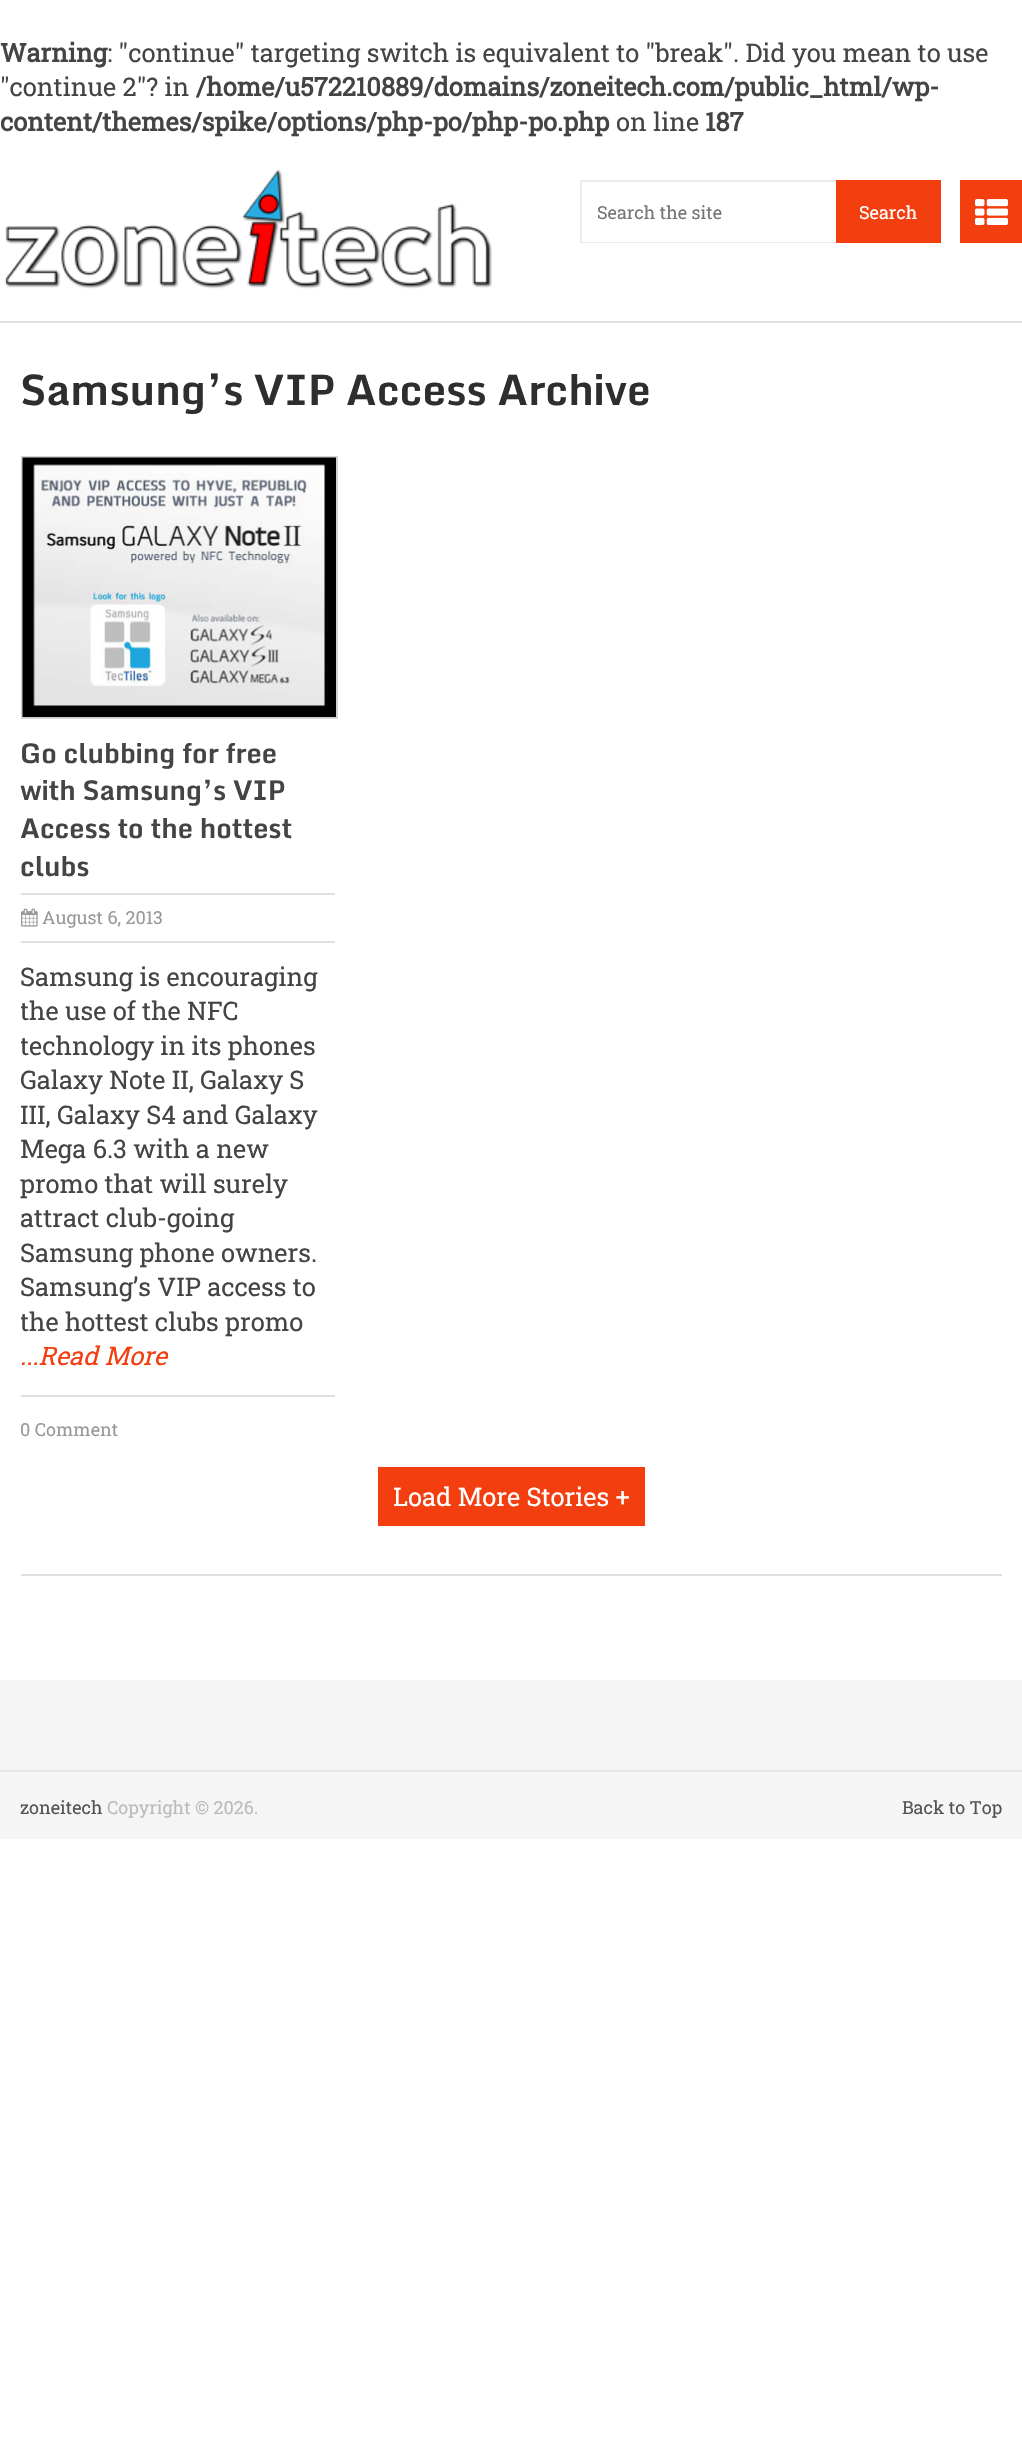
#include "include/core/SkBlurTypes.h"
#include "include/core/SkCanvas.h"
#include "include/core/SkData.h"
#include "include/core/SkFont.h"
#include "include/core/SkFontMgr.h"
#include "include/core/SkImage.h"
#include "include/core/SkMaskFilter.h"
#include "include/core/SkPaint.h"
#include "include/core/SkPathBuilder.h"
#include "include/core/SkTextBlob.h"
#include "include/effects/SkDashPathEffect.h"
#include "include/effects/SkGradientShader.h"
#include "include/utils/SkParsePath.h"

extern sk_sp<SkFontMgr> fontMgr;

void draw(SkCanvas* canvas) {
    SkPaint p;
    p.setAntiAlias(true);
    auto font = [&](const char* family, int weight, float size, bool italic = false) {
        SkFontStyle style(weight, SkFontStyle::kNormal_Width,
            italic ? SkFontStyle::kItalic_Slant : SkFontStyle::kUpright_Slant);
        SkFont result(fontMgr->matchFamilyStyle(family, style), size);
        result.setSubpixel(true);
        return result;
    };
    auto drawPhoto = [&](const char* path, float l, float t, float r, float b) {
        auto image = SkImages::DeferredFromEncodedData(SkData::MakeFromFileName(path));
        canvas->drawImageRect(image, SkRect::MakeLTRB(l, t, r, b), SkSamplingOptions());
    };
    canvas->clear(0xFFFFFFFF);
    auto font1 = font("Roboto Slab", 700, 25.5f);
    p.setColor(0xFF444444);
    canvas->drawString("Warning", 0, 62, font1, p);
    auto font2 = font("Roboto Slab", 400, 25.5f);
    canvas->drawString(": \"continue\" targeting switch is equivalent to \"break\". Did you mean to use", 107, 62, font2, p);
    canvas->drawString("\"continue 2\"? in", 0, 96, font2, p);
    canvas->drawString("/home/u572210889/domains/zoneitech.com/public_html/wp-", 196, 96, font1, p);
    canvas->drawString("content/themes/spike/options/php-po/php-po.php", 0, 131, font1, p);
    canvas->drawString("on line", 616, 131, font2, p);
    canvas->drawString("187", 705, 131, font1, p);
    p.setColor(0xFFE0E0E0);
    canvas->drawRect(SkRect::MakeLTRB(0, 321, 1022, 323), p);
    drawPhoto("media/1.png", 5, 169, 492, 289);
    p.setColor(0xFFEBEBEB);
    canvas->drawPath(SkPathBuilder().moveTo(580, 180).lineTo(850, 180).lineTo(850, 182).lineTo(582, 182).close().detach(), p);
    canvas->drawPath(SkPathBuilder().moveTo(850, 243).lineTo(580, 243).lineTo(582, 242).lineTo(850, 242).close().detach(), p);
    p.setColor(0x14000000);
    canvas->drawPath(SkPathBuilder().moveTo(580, 243).lineTo(580, 180).lineTo(582, 182).lineTo(582, 242).close().detach(), p);
    auto font3 = font("Roboto Slab", 400, 18);
    p.setColor(0xFF757575);
    canvas->drawString("Search the site", 597, 219, font3, p);
    p.setColor(0xFFF33E0F);
    canvas->drawRect(SkRect::MakeLTRB(836, 180, 941, 243), p);
    p.setColor(0xFFFFFFFF);
    canvas->drawString("Search", 859, 219, font3, p);
    p.setColor(0xFFF33E0F);
    canvas->drawRect(SkRect::MakeLTRB(960, 180, 1022, 243), p);
    drawPhoto("media/2.png", 975, 199, 1008, 225);
    auto font4 = font("Monda", 700, 42);
    p.setColor(0xFF2E2E2E);
    canvas->drawString("Samsung’s VIP Access Archive", 20, 405, font4, p);
    p.setStyle(SkPaint::kStroke_Style);
    p.setStrokeWidth(2);
    p.setColor(0xFFD2D2D2);
    canvas->drawRect(SkRect::MakeLTRB(22, 457, 337, 718), p);
    drawPhoto("media/3.png", 22, 457, 336, 717);
    auto font5 = font("Monda", 700, 27);
    p.setStyle(SkPaint::kFill_Style);
    p.setColor(0xFF444444);
    {
        const struct { const char* s; float x, y; } items[] = {
            {"Go clubbing for free", 20, 763},
            {"with Samsung’s VIP", 20, 800},
            {"Access to the hottest", 20, 838},
            {"clubs", 20, 876},
        };
        for (auto [s, x, y] : items) {
            canvas->drawString(s, x, y, font5, p);
        }
    }
    p.setColor(0xFFE0E0E0);
    canvas->drawRect(SkRect::MakeLTRB(21, 893, 335, 895), p);
    canvas->drawRect(SkRect::MakeLTRB(21, 941, 335, 943), p);
    drawPhoto("media/4.png", 21, 908, 38, 927);
    p.setColor(0xFF999999);
    canvas->drawString("August 6, 2013", 42, 924, font3, p);
    p.setColor(0xFF444444);
    canvas->drawString("Samsung is encouraging", 20, 986, font2, p);
    canvas->save();
    canvas->clipRect(SkRect::MakeLTRB(21, 959, 335, 1449));
    canvas->drawString("the use of the NFC", 20, 1020, font2, p);
    canvas->drawString("technology in its phones", 20, 1055, font2, p);
    canvas->restore();
    {
        const struct { const char* s; float x, y; } items[] = {
            {"Galaxy Note II, Galaxy S", 20, 1089},
            {"III, Galaxy S4 and Galaxy", 20, 1124},
            {"Mega 6.3 with a new", 20, 1158},
            {"promo that will surely", 20, 1193},
            {"attract club-going", 20, 1227},
            {"Samsung phone owners.", 20, 1262},
            {"Samsung’s VIP access to", 20, 1296},
        };
        for (auto [s, x, y] : items) {
            canvas->drawString(s, x, y, font2, p);
        }
    }
    canvas->save();
    canvas->clipRect(SkRect::MakeLTRB(21, 959, 335, 1449));
    canvas->drawString("the hottest clubs promo", 20, 1331, font2, p);
    canvas->restore();
    auto font6 = font("Roboto Slab", 400, 25.5f, true);
    p.setColor(0xFFF33E0F);
    canvas->drawString("...Read More", 20, 1365, font6, p);
    p.setColor(0xFFE0E0E0);
    canvas->drawRect(SkRect::MakeLTRB(21, 1395, 335, 1397), p);
    p.setColor(0xFF999999);
    canvas->drawString("0 Comment", 20, 1436, font3, p);
    p.setColor(0xFFF33E0F);
    canvas->drawRect(SkRect::MakeLTRB(378, 1467, 645, 1526), p);
    p.setColor(0xFFFFFFFF);
    canvas->drawString("Load More Stories +", 393, 1506, font2, p);
    {
        const struct { float l, t, r, b; SkColor color; } items[] = {
            {21, 1574, 1002, 1576, 0xFFE0E0E0},
            {0, 1680, 1022, 1839, 0xFFF5F5F5},
            {0, 1770, 1022, 1772, 0xFFE6E6E6},
        };
        for (auto [l, t, r, b, color] : items) {
            p.setColor(color);
            canvas->drawRect(SkRect::MakeLTRB(l, t, r, b), p);
        }
    }
    p.setColor(0xFF535353);
    canvas->drawString("zoneitech", 20, 1814, font3, p);
    p.setColor(0xFFBBBBBB);
    canvas->drawString("Copyright © 2026.", 107, 1814, font3, p);
    p.setColor(0xFF535353);
    canvas->drawString("Back to Top", 902, 1814, font3, p);
}
